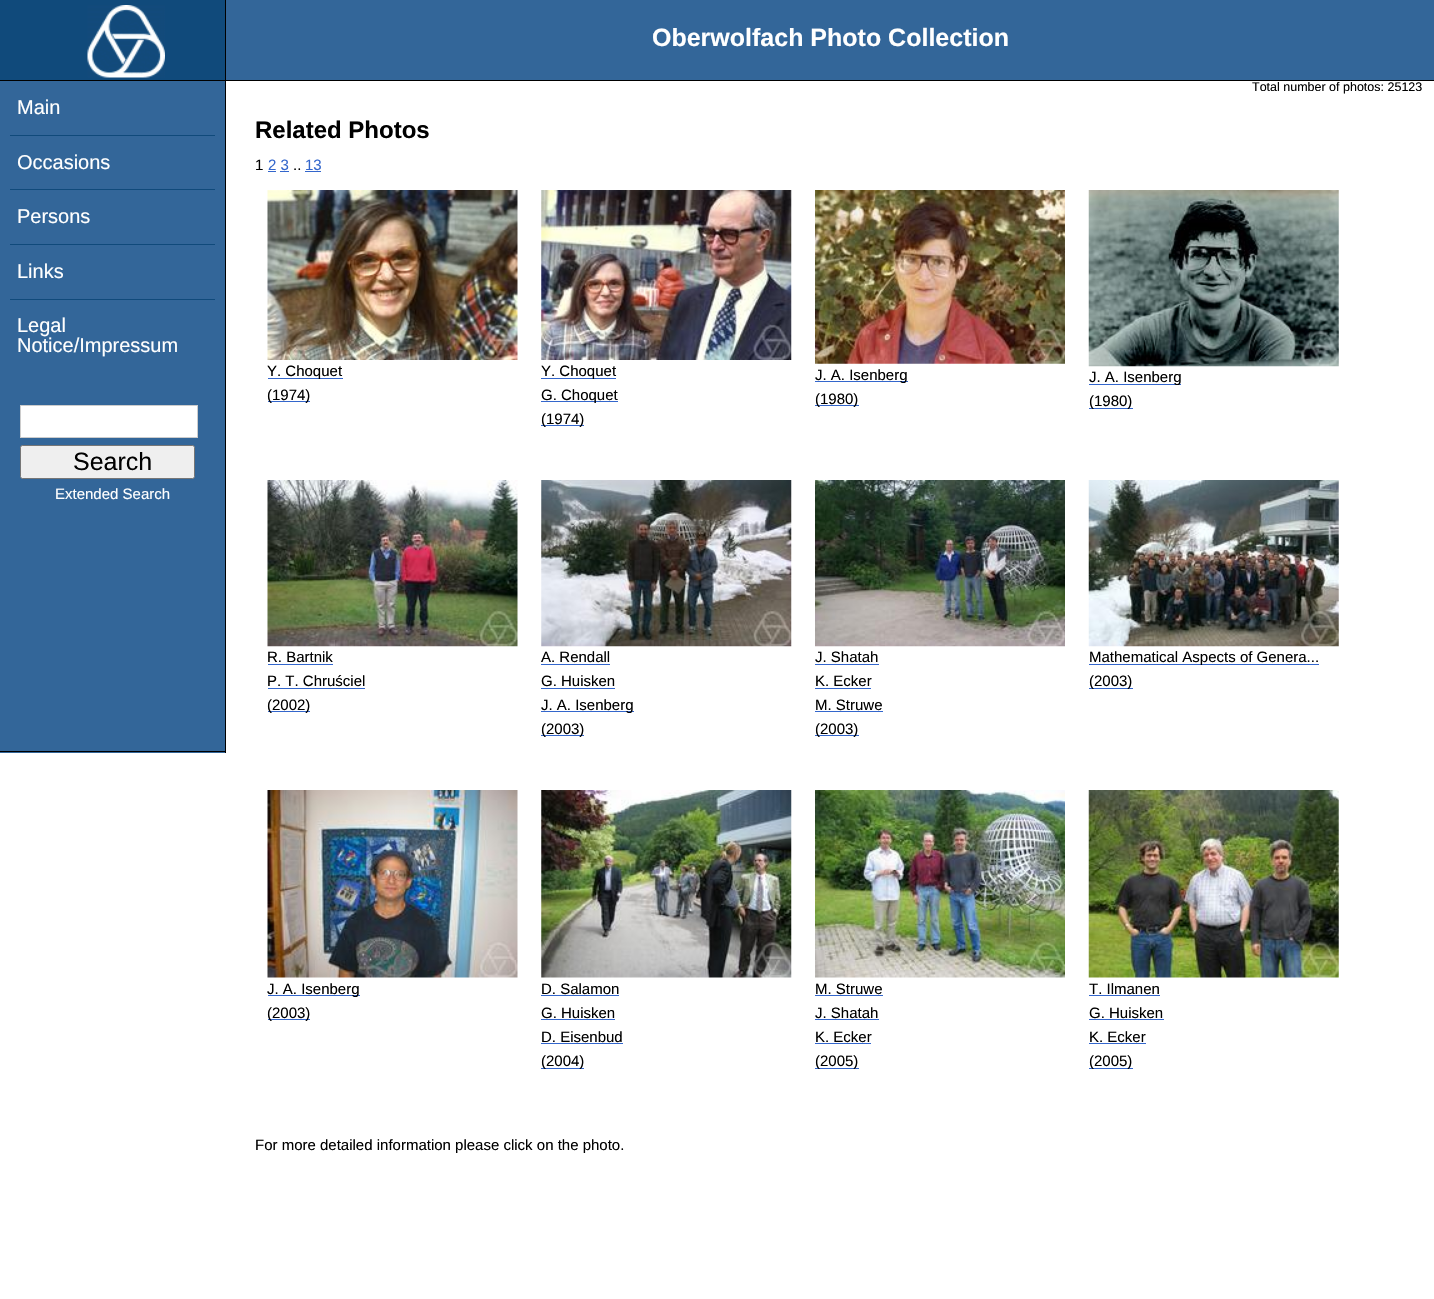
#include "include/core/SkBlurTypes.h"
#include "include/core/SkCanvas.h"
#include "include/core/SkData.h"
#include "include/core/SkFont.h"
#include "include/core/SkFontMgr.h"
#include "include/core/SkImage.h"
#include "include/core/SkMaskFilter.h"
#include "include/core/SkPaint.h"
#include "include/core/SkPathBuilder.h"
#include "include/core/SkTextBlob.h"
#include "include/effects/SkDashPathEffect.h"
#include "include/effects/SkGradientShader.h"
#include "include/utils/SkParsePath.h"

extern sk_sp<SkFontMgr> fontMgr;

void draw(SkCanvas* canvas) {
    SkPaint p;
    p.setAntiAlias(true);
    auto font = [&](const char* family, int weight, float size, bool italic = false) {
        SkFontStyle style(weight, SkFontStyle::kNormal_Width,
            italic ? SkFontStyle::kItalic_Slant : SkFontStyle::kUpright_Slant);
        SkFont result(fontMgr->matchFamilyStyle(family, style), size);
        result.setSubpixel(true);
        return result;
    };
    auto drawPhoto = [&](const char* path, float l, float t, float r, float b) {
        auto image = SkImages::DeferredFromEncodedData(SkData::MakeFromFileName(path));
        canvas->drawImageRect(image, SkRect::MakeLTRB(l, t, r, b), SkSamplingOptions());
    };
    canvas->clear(0xFFFFFFFF);
    {
        const struct { float l, t, r, b; SkColor color; } items[] = {
            {226, 0, 1434, 80, 0xFF336699},
            {0, 80, 1434, 81, 0xFF000000},
            {0, 0, 225, 80, 0xFF104A7B},
            {225, 0, 226, 80, 0xFF000000},
        };
        for (auto [l, t, r, b, color] : items) {
            p.setColor(color);
            canvas->drawRect(SkRect::MakeLTRB(l, t, r, b), p);
        }
    }
    drawPhoto("media/1.png", 87, 5, 165, 78);
    auto font1 = font("Liberation Sans", 700, 25);
    p.setColor(0xFFFFFFFF);
    canvas->drawString("Oberwolfach Photo Collection", 652, 46, font1, p);
    auto font2 = font("Liberation Sans", 400, 12.5f);
    p.setColor(0xFF000000);
    canvas->drawString("Total number of photos: 25123", 1252, 91, font2, p);
    {
        const struct { float l, t, r, b; SkColor color; } items[] = {
            {0, 81, 225, 753, 0xFF336699},
            {225, 81, 226, 753, 0xFF000000},
            {0, 751, 226, 752, 0xFF000000},
        };
        for (auto [l, t, r, b, color] : items) {
            p.setColor(color);
            canvas->drawRect(SkRect::MakeLTRB(l, t, r, b), p);
        }
    }
    auto font3 = font("Liberation Sans", 400, 20);
    p.setColor(0xFFFFFFFF);
    canvas->drawString("Main", 17, 114, font3, p);
    p.setColor(0xFF104A7B);
    canvas->drawRect(SkRect::MakeLTRB(10, 135, 215, 136), p);
    p.setColor(0xFFFFFFFF);
    canvas->drawString("Occasions", 17, 169, font3, p);
    p.setColor(0xFF104A7B);
    canvas->drawRect(SkRect::MakeLTRB(10, 189, 215, 190), p);
    p.setColor(0xFFFFFFFF);
    canvas->drawString("Persons", 17, 223, font3, p);
    p.setColor(0xFF104A7B);
    canvas->drawRect(SkRect::MakeLTRB(10, 244, 215, 245), p);
    p.setColor(0xFFFFFFFF);
    canvas->drawString("Links", 17, 278, font3, p);
    p.setColor(0xFF104A7B);
    canvas->drawRect(SkRect::MakeLTRB(10, 299, 215, 300), p);
    p.setColor(0xFFFFFFFF);
    canvas->drawString("Legal", 17, 332, font3, p);
    canvas->drawString("Notice/Impressum", 17, 352, font3, p);
    canvas->drawRect(SkRect::MakeLTRB(20.5f, 405.5f, 197.5f, 437.5f), p);
    p.setStyle(SkPaint::kStroke_Style);
    p.setStrokeWidth(1);
    p.setColor(0xFFCCCCCC);
    canvas->drawRect(SkRect::MakeLTRB(20.5f, 405.5f, 197.5f, 437.5f), p);
    p.setStyle(SkPaint::kFill_Style);
    p.setColor(0xFFEFEFEF);
    canvas->drawRoundRect(SkRect::MakeLTRB(20.5f, 445.5f, 194.5f, 478.5f), 2, 2, p);
    p.setStyle(SkPaint::kStroke_Style);
    p.setColor(0xFF767676);
    canvas->drawRoundRect(SkRect::MakeLTRB(20.5f, 445.5f, 194.5f, 478.5f), 2, 2, p);
    auto font4 = font("Liberation Sans", 400, 25);
    p.setStyle(SkPaint::kFill_Style);
    p.setColor(0xFF000000);
    canvas->drawString("Search", 73, 470, font4, p);
    auto font5 = font("Liberation Sans", 400, 15);
    p.setColor(0xFFFFFFFF);
    canvas->drawString("Extended Search", 55, 499, font5, p);
    auto font6 = font("Liberation Sans", 700, 24);
    p.setColor(0xFF000000);
    canvas->drawString("Related Photos", 255, 138, font6, p);
    canvas->drawString("1", 255, 170, font5, p);
    p.setColor(0xFF3366CC);
    canvas->drawString("2 3", 268, 170, font5, p);
    canvas->drawRect(SkRect::MakeLTRB(268, 171, 276, 172), p);
    p.setColor(0xFF000000);
    canvas->drawString("..", 293, 170, font5, p);
    p.setColor(0xFF3366CC);
    canvas->drawString("13", 305, 170, font5, p);
    canvas->drawRect(SkRect::MakeLTRB(305, 171, 321, 172), p);
    canvas->drawRect(SkRect::MakeLTRB(280, 171, 289, 172), p);
    drawPhoto("media/2.png", 267, 190, 518, 360);
    canvas->drawRect(SkRect::MakeLTRB(268, 378, 343, 379), p);
    p.setColor(0xFF000000);
    canvas->drawString("Y. Choquet", 267, 376, font5, p);
    p.setColor(0xFF3366CC);
    canvas->drawRect(SkRect::MakeLTRB(268, 401, 310, 402), p);
    p.setColor(0xFF000000);
    canvas->drawString("(1974)", 267, 400, font5, p);
    drawPhoto("media/3.png", 541, 190, 792, 360);
    p.setColor(0xFF3366CC);
    canvas->drawRect(SkRect::MakeLTRB(541, 378, 616, 379), p);
    p.setColor(0xFF000000);
    canvas->drawString("Y. Choquet", 541, 376, font5, p);
    p.setColor(0xFF3366CC);
    canvas->drawRect(SkRect::MakeLTRB(541, 401, 618, 402), p);
    p.setColor(0xFF000000);
    canvas->drawString("G. Choquet", 541, 400, font5, p);
    p.setColor(0xFF3366CC);
    canvas->drawRect(SkRect::MakeLTRB(541, 425, 584, 426), p);
    p.setColor(0xFF000000);
    canvas->drawString("(1974)", 541, 424, font5, p);
    drawPhoto("media/4.png", 815, 190, 1065, 364);
    p.setColor(0xFF3366CC);
    canvas->drawRect(SkRect::MakeLTRB(815, 381, 908, 382), p);
    p.setColor(0xFF000000);
    canvas->drawString("J. A. Isenberg", 815, 380, font5, p);
    p.setColor(0xFF3366CC);
    canvas->drawRect(SkRect::MakeLTRB(815, 405, 859, 406), p);
    p.setColor(0xFF000000);
    canvas->drawString("(1980)", 815, 404, font5, p);
    drawPhoto("media/5.png", 1088, 190, 1339, 367);
    p.setColor(0xFF3366CC);
    canvas->drawRect(SkRect::MakeLTRB(1089, 384, 1181, 385), p);
    p.setColor(0xFF000000);
    canvas->drawString("J. A. Isenberg", 1089, 382, font5, p);
    p.setColor(0xFF3366CC);
    canvas->drawRect(SkRect::MakeLTRB(1089, 408, 1133, 409), p);
    p.setColor(0xFF000000);
    canvas->drawString("(1980)", 1089, 406, font5, p);
    drawPhoto("media/6.png", 267, 480, 518, 647);
    canvas->drawString("R. Bartnik", 267, 662, font5, p);
    p.setColor(0xFF3366CC);
    canvas->drawRect(SkRect::MakeLTRB(268, 664, 333, 665), p);
    p.setColor(0xFF000000);
    canvas->drawString("P. T. Chruściel", 267, 686, font5, p);
    p.setColor(0xFF3366CC);
    canvas->drawRect(SkRect::MakeLTRB(268, 688, 365, 689), p);
    canvas->drawRect(SkRect::MakeLTRB(268, 711, 310, 712), p);
    p.setColor(0xFF000000);
    canvas->drawString("(2002)", 267, 710, font5, p);
    drawPhoto("media/7.png", 541, 480, 792, 647);
    canvas->drawString("A. Rendall", 541, 662, font5, p);
    p.setColor(0xFF3366CC);
    canvas->drawRect(SkRect::MakeLTRB(541, 664, 610, 665), p);
    p.setColor(0xFF000000);
    canvas->drawString("G. Huisken", 541, 686, font5, p);
    p.setColor(0xFF3366CC);
    canvas->drawRect(SkRect::MakeLTRB(541, 688, 615, 689), p);
    canvas->drawRect(SkRect::MakeLTRB(541, 711, 634, 712), p);
    p.setColor(0xFF000000);
    canvas->drawString("J. A. Isenberg", 541, 710, font5, p);
    p.setColor(0xFF3366CC);
    canvas->drawRect(SkRect::MakeLTRB(541, 735, 584, 736), p);
    p.setColor(0xFF000000);
    canvas->drawString("(2003)", 541, 734, font5, p);
    drawPhoto("media/8.png", 815, 480, 1065, 647);
    canvas->drawString("J. Shatah", 815, 662, font5, p);
    p.setColor(0xFF3366CC);
    canvas->drawRect(SkRect::MakeLTRB(815, 664, 879, 665), p);
    p.setColor(0xFF000000);
    canvas->drawString("K. Ecker", 815, 686, font5, p);
    p.setColor(0xFF3366CC);
    canvas->drawRect(SkRect::MakeLTRB(815, 688, 871, 689), p);
    p.setColor(0xFF000000);
    canvas->drawString("M. Struwe", 815, 710, font5, p);
    p.setColor(0xFF3366CC);
    canvas->drawRect(SkRect::MakeLTRB(815, 711, 883, 712), p);
    canvas->drawRect(SkRect::MakeLTRB(815, 735, 859, 736), p);
    p.setColor(0xFF000000);
    canvas->drawString("(2003)", 815, 734, font5, p);
    drawPhoto("media/9.png", 1088, 480, 1339, 647);
    p.setColor(0xFF3366CC);
    canvas->drawRect(SkRect::MakeLTRB(1089, 664, 1319, 665), p);
    p.setColor(0xFF000000);
    canvas->drawString("Mathematical Aspects of Genera...", 1089, 662, font5, p);
    p.setColor(0xFF3366CC);
    canvas->drawRect(SkRect::MakeLTRB(1089, 688, 1133, 689), p);
    p.setColor(0xFF000000);
    canvas->drawString("(2003)", 1089, 686, font5, p);
    drawPhoto("media/10.png", 267, 790, 518, 978);
    p.setColor(0xFF3366CC);
    canvas->drawRect(SkRect::MakeLTRB(268, 995, 360, 996), p);
    p.setColor(0xFF000000);
    canvas->drawString("J. A. Isenberg", 267, 994, font5, p);
    p.setColor(0xFF3366CC);
    canvas->drawRect(SkRect::MakeLTRB(268, 1019, 310, 1020), p);
    p.setColor(0xFF000000);
    canvas->drawString("(2003)", 267, 1018, font5, p);
    drawPhoto("media/11.png", 541, 790, 792, 978);
    canvas->drawString("D. Salamon", 541, 994, font5, p);
    p.setColor(0xFF3366CC);
    canvas->drawRect(SkRect::MakeLTRB(541, 995, 619, 996), p);
    p.setColor(0xFF000000);
    canvas->drawString("G. Huisken", 541, 1018, font5, p);
    p.setColor(0xFF3366CC);
    canvas->drawRect(SkRect::MakeLTRB(541, 1019, 615, 1020), p);
    p.setColor(0xFF000000);
    canvas->drawString("D. Eisenbud", 541, 1042, font5, p);
    p.setColor(0xFF3366CC);
    canvas->drawRect(SkRect::MakeLTRB(541, 1043, 623, 1044), p);
    canvas->drawRect(SkRect::MakeLTRB(541, 1068, 584, 1069), p);
    p.setColor(0xFF000000);
    canvas->drawString("(2004)", 541, 1066, font5, p);
    drawPhoto("media/12.png", 815, 790, 1065, 978);
    canvas->drawString("M. Struwe", 815, 994, font5, p);
    p.setColor(0xFF3366CC);
    canvas->drawRect(SkRect::MakeLTRB(815, 995, 883, 996), p);
    p.setColor(0xFF000000);
    canvas->drawString("J. Shatah", 815, 1018, font5, p);
    p.setColor(0xFF3366CC);
    canvas->drawRect(SkRect::MakeLTRB(815, 1019, 879, 1020), p);
    p.setColor(0xFF000000);
    canvas->drawString("K. Ecker", 815, 1042, font5, p);
    p.setColor(0xFF3366CC);
    canvas->drawRect(SkRect::MakeLTRB(815, 1043, 871, 1044), p);
    canvas->drawRect(SkRect::MakeLTRB(815, 1068, 859, 1069), p);
    p.setColor(0xFF000000);
    canvas->drawString("(2005)", 815, 1066, font5, p);
    drawPhoto("media/13.png", 1088, 790, 1339, 978);
    canvas->drawString("T. Ilmanen", 1089, 994, font5, p);
    p.setColor(0xFF3366CC);
    canvas->drawRect(SkRect::MakeLTRB(1089, 995, 1160, 996), p);
    p.setColor(0xFF000000);
    canvas->drawString("G. Huisken", 1089, 1018, font5, p);
    p.setColor(0xFF3366CC);
    canvas->drawRect(SkRect::MakeLTRB(1089, 1019, 1164, 1020), p);
    p.setColor(0xFF000000);
    canvas->drawString("K. Ecker", 1089, 1042, font5, p);
    p.setColor(0xFF3366CC);
    canvas->drawRect(SkRect::MakeLTRB(1089, 1043, 1146, 1044), p);
    canvas->drawRect(SkRect::MakeLTRB(1089, 1068, 1133, 1069), p);
    p.setColor(0xFF000000);
    canvas->drawString("(2005)", 1089, 1066, font5, p);
    canvas->drawString("For more detailed information please click on the photo.", 255, 1150, font5, p);
}
